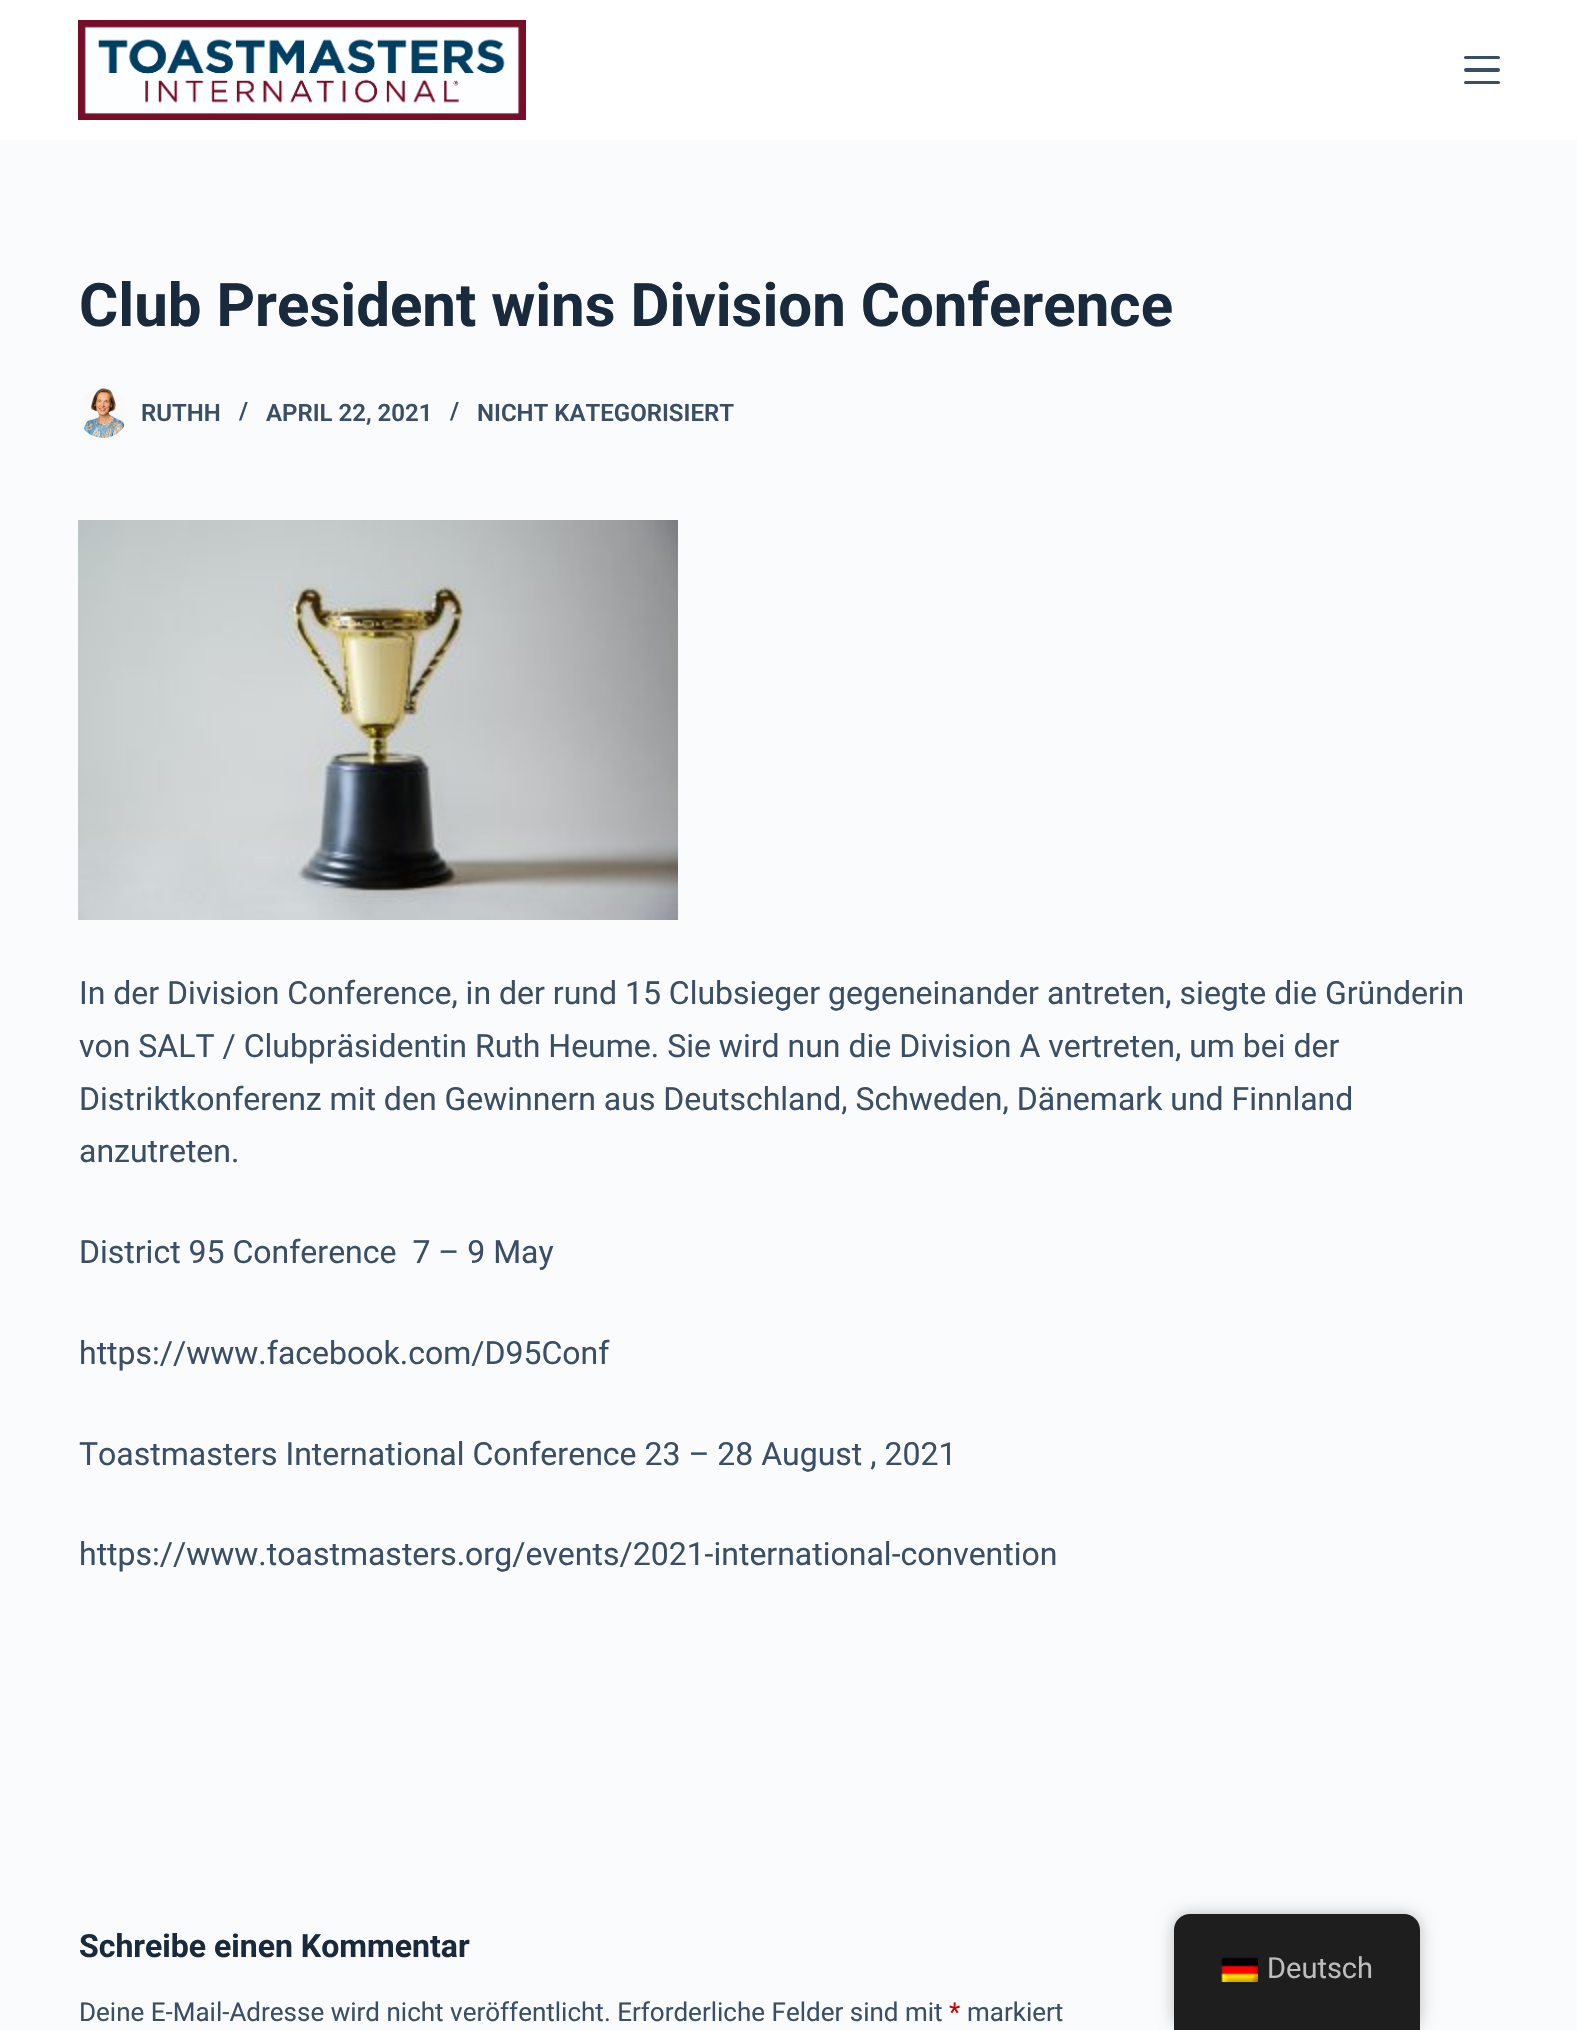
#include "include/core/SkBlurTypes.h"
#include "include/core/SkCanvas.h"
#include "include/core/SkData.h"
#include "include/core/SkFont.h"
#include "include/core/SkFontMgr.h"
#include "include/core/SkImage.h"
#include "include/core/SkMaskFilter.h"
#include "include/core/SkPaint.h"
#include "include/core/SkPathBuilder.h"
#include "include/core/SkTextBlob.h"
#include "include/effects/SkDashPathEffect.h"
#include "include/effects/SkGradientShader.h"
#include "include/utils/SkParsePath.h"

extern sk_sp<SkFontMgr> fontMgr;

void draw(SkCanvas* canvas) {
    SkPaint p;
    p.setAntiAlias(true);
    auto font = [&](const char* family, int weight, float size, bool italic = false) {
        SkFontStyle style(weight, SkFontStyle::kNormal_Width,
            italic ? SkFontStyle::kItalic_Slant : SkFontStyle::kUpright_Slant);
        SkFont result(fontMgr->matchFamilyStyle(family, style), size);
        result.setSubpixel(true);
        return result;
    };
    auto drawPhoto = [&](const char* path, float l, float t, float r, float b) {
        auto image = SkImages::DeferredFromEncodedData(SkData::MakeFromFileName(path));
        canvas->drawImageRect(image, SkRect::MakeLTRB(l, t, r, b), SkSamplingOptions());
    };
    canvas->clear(0xFFFAFBFC);
    p.setColor(0xFFFFFFFF);
    canvas->drawRect(SkRect::MakeLTRB(0, 0, 1577, 140), p);
    drawPhoto("media/1.png", 78, 20, 526, 120);
    p.setColor(0xFF3A4F66);
    canvas->drawRoundRect(SkRect::MakeLTRB(1464, 56, 1500, 59), 1.5f, 1.5f, p);
    canvas->drawRoundRect(SkRect::MakeLTRB(1464, 68, 1500, 72), 2, 2, p);
    canvas->drawRoundRect(SkRect::MakeLTRB(1464, 81, 1500, 84), 1.5f, 1.5f, p);
    auto font1 = font("Roboto", 700, 60);
    p.setColor(0xFF192A3D);
    canvas->drawString("Club President wins Division Conference", 79, 326, font1, p);
    drawPhoto("media/2.png", 82, 388, 125, 438);
    auto font2 = font("Roboto", 600, 24);
    p.setColor(0xFF3A4F66);
    {
        const struct { const char* s; float x, y; } items[] = {
            {"RUTHH", 141, 421},
            {"/", 239, 419},
            {"APRIL 22, 2021", 266, 421},
            {"/", 450, 419},
            {"NICHT KATEGORISIERT", 477, 421},
        };
        for (auto [s, x, y] : items) {
            canvas->drawString(s, x, y, font2, p);
        }
    }
    drawPhoto("media/3.png", 78, 520, 678, 920);
    auto font3 = font("Roboto", 400, 32);
    {
        const struct { const char* s; float x, y; } items[] = {
            {"In der Division Conference, in der rund 15 Clubsieger gegeneinander antreten, siegte die Gründerin", 79, 1004},
            {"von SALT / Clubpräsidentin Ruth Heume. Sie wird nun die Division A vertreten, um bei der", 79, 1057},
            {"Distriktkonferenz mit den Gewinnern aus Deutschland, Schweden, Dänemark und Finnland", 79, 1110},
            {"anzutreten.", 79, 1162},
            {"District 95 Conference  7 – 9 May", 79, 1263},
            {"https://www.facebook.com/D95Conf", 79, 1364},
            {"Toastmasters International Conference 23 – 28 August , 2021", 79, 1465},
            {"https://www.toastmasters.org/events/2021-international-convention", 79, 1565},
        };
        for (auto [s, x, y] : items) {
            canvas->drawString(s, x, y, font3, p);
        }
    }
    auto font4 = font("Roboto", 700, 32);
    p.setColor(0xFF192A3D);
    canvas->drawString("Schreibe einen Kommentar", 79, 1957, font4, p);
    auto font5 = font("Roboto", 400, 26);
    p.setColor(0xFF3A4F66);
    canvas->drawString("Deine E-Mail-Adresse wird nicht veröffentlicht. Erforderliche Felder sind mit", 79, 2021, font5, p);
    p.setColor(0xFFCC0000);
    canvas->drawString("*", 949, 2021, font5, p);
    p.setColor(0xFF3A4F66);
    canvas->drawString("markiert", 967, 2021, font5, p);
    p.setColor(0x40000000);
    p.setMaskFilter(SkMaskFilter::MakeBlur(kNormal_SkBlurStyle, 8));
    canvas->drawRoundRect(SkRect::MakeLTRB(1174, 1914, 1420, 2030), 16, 16, p);
    p.setMaskFilter(nullptr);
    p.setColor(0xFF1E1E1E);
    canvas->drawPath(SkPathBuilder().moveTo(1190, 1914).lineTo(1404, 1914).cubicTo(1413, 1914, 1420, 1921, 1420, 1930).lineTo(1420, 2030).lineTo(1174, 2030).lineTo(1174, 1930).cubicTo(1174, 1921, 1181, 1914, 1190, 1914).close().detach(), p);
    drawPhoto("media/4.png", 1221, 1957, 1258, 1982);
    auto font6 = font("Roboto", 400, 29);
    p.setColor(0xFFBDBDBD);
    canvas->drawString("Deutsch", 1267, 1978, font6, p);
}
